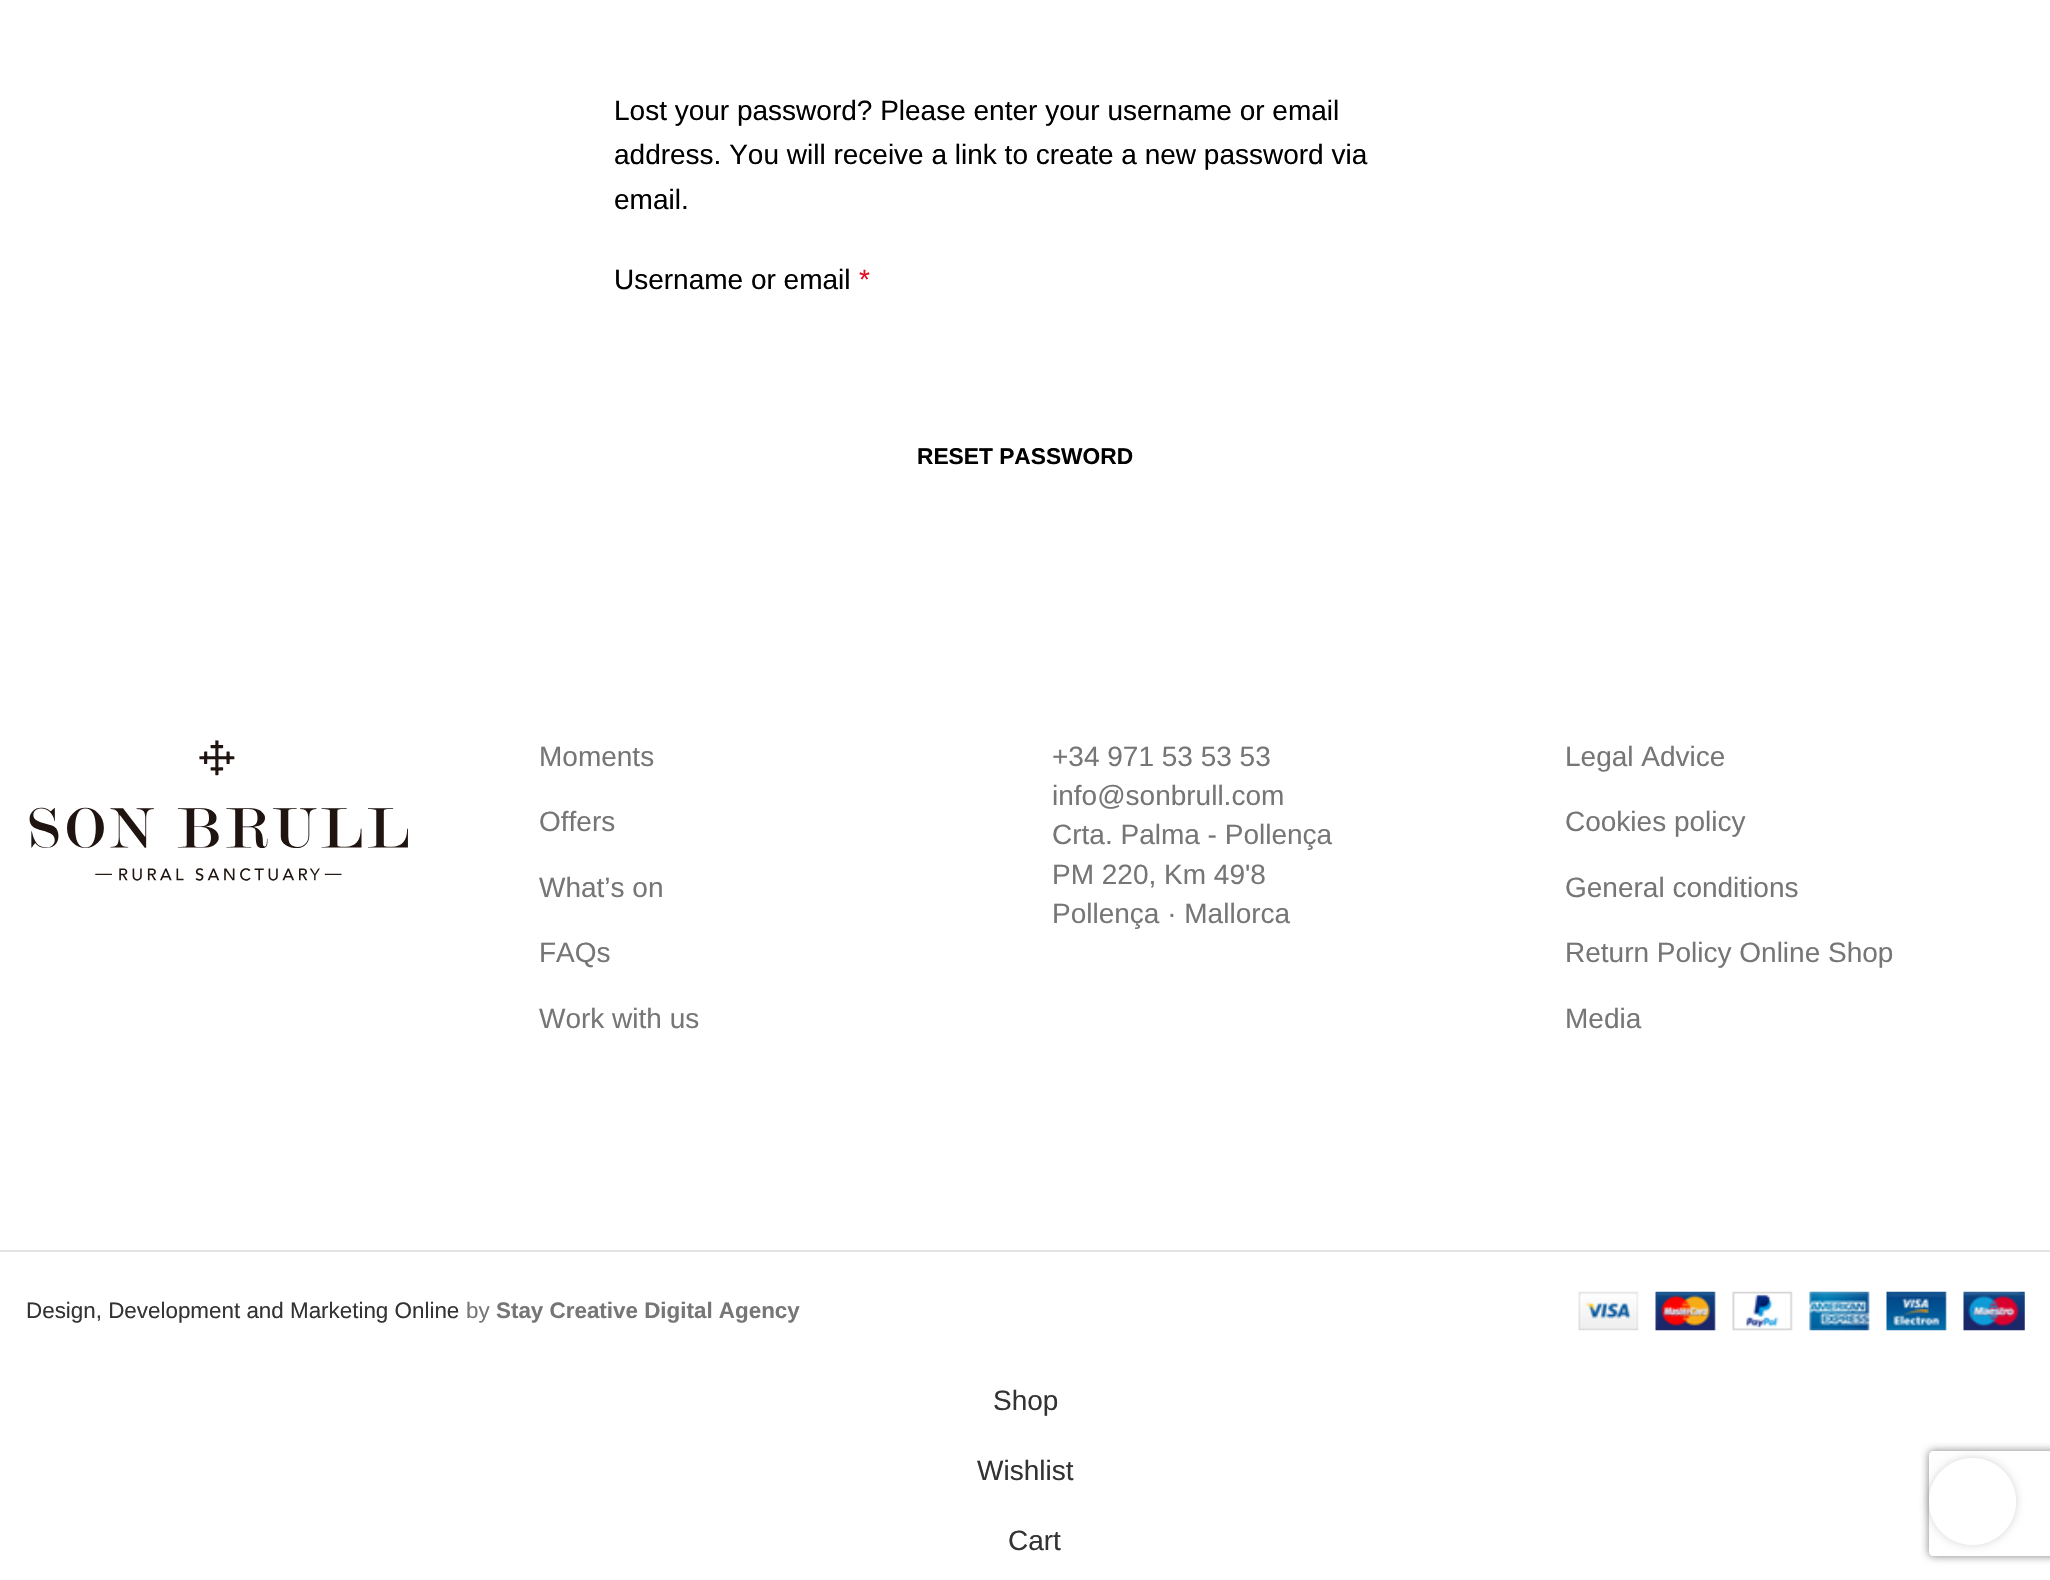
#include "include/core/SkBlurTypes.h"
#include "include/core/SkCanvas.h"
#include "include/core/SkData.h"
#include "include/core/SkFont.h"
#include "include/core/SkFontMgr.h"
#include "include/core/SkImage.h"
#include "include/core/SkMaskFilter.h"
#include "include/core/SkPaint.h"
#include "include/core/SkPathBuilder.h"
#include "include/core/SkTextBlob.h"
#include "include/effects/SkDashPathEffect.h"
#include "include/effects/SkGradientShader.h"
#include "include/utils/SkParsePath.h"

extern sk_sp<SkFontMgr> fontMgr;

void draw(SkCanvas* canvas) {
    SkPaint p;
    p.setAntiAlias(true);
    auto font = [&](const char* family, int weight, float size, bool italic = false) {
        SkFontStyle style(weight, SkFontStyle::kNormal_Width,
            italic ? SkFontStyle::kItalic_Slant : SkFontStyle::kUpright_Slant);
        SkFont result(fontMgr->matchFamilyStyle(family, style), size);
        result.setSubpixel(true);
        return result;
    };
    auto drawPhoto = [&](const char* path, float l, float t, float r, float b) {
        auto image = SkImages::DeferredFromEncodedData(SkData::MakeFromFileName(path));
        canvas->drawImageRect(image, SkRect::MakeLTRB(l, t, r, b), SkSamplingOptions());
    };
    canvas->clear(0xFFFFFFFF);
    auto font1 = font("Liberation Sans", 400, 28);
    p.setColor(0xFF000000);
    {
        const struct { const char* s; float x, y; } items[] = {
            {"Lost your password? Please enter your username or email", 614, 120},
            {"address. You will receive a link to create a new password via", 614, 164},
            {"email.", 614, 209},
            {"Username or email", 614, 289},
        };
        for (auto [s, x, y] : items) {
            canvas->drawString(s, x, y, font1, p);
        }
    }
    p.setColor(0xFFE01020);
    canvas->drawString("*", 859, 289, font1, p);
    auto font2 = font("Liberation Sans", 700, 22.75f);
    p.setColor(0xFF000000);
    canvas->drawString("RESET PASSWORD", 917, 464, font2, p);
    drawPhoto("media/1.png", 29, 740, 408, 881);
    p.setColor(0xFF767676);
    {
        const struct { const char* s; float x, y; } items[] = {
            {"Moments", 539, 766},
            {"Offers", 539, 831},
            {"What’s on", 539, 897},
            {"FAQs", 539, 962},
            {"Work with us", 539, 1028},
            {"+34 971 53 53 53", 1052, 766},
            {"info@sonbrull.com", 1052, 805},
            {"Crta. Palma - Pollença", 1052, 844},
            {"PM 220, Km 49'8", 1052, 884},
            {"Pollença · Mallorca", 1052, 923},
            {"Legal Advice", 1565, 766},
            {"Cookies policy", 1565, 831},
            {"General conditions", 1565, 897},
            {"Return Policy Online Shop", 1565, 962},
            {"Media", 1565, 1028},
        };
        for (auto [s, x, y] : items) {
            canvas->drawString(s, x, y, font1, p);
        }
    }
    p.setColor(0xFFE4E4E4);
    canvas->drawRect(SkRect::MakeLTRB(0, 1250, 2050, 1252), p);
    auto font3 = font("Liberation Sans", 400, 22.4f);
    p.setColor(0xFF333333);
    canvas->drawString("Design, Development and Marketing Online", 26, 1318, font3, p);
    p.setColor(0xFF767676);
    canvas->drawString("by", 466, 1318, font3, p);
    auto font4 = font("Liberation Sans", 700, 22.4f);
    canvas->drawString("Stay Creative Digital Agency", 496, 1318, font4, p);
    drawPhoto("media/2.png", 1578, 1291, 2025, 1331);
    p.setColor(0xFF333333);
    {
        const struct { const char* s; float x, y; } items[] = {
            {"Shop", 993, 1410},
            {"Wishlist", 977, 1480},
            {"Cart", 1008, 1550},
        };
        for (auto [s, x, y] : items) {
            canvas->drawString(s, x, y, font1, p);
        }
    }
    canvas->save();
    canvas->clipPath(SkPathBuilder(SkPathFillType::kEvenOdd).moveTo(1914, 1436).lineTo(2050, 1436).lineTo(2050, 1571).lineTo(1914, 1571).close().moveTo(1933, 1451).lineTo(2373, 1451).cubicTo(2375, 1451, 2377, 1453, 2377, 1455).lineTo(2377, 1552).cubicTo(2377, 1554, 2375, 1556, 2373, 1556).lineTo(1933, 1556).cubicTo(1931, 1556, 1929, 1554, 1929, 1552).lineTo(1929, 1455).cubicTo(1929, 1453, 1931, 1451, 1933, 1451).close().detach(), true);
    p.setColor(0xFF808080);
    p.setMaskFilter(SkMaskFilter::MakeBlur(kNormal_SkBlurStyle, 4.5f));
    canvas->drawRoundRect(SkRect::MakeLTRB(1929, 1451, 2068, 1556), 4, 4, p);
    p.setMaskFilter(nullptr);
    canvas->restore();
    canvas->save();
    canvas->clipPath(SkPathBuilder(SkPathFillType::kEvenOdd).moveTo(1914, 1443).lineTo(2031, 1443).lineTo(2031, 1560).lineTo(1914, 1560).close().moveTo(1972.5f, 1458).cubicTo(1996.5f, 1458, 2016, 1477.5f, 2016, 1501.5f).cubicTo(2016, 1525.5f, 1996.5f, 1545, 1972.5f, 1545).cubicTo(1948.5f, 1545, 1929, 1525.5f, 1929, 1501.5f).cubicTo(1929, 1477.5f, 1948.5f, 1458, 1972.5f, 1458).close().detach(), true);
    p.setColor(0x2B000000);
    p.setMaskFilter(SkMaskFilter::MakeBlur(kNormal_SkBlurStyle, 4.5f));
    canvas->drawRoundRect(SkRect::MakeLTRB(1929, 1458, 2016, 1545), 43.5f, 43.5f, p);
    p.setMaskFilter(nullptr);
    canvas->restore();
    p.setColor(0xE6FFFFFF);
    canvas->drawCircle(1972.5f, 1501.5f, 43.5f, p);
}
